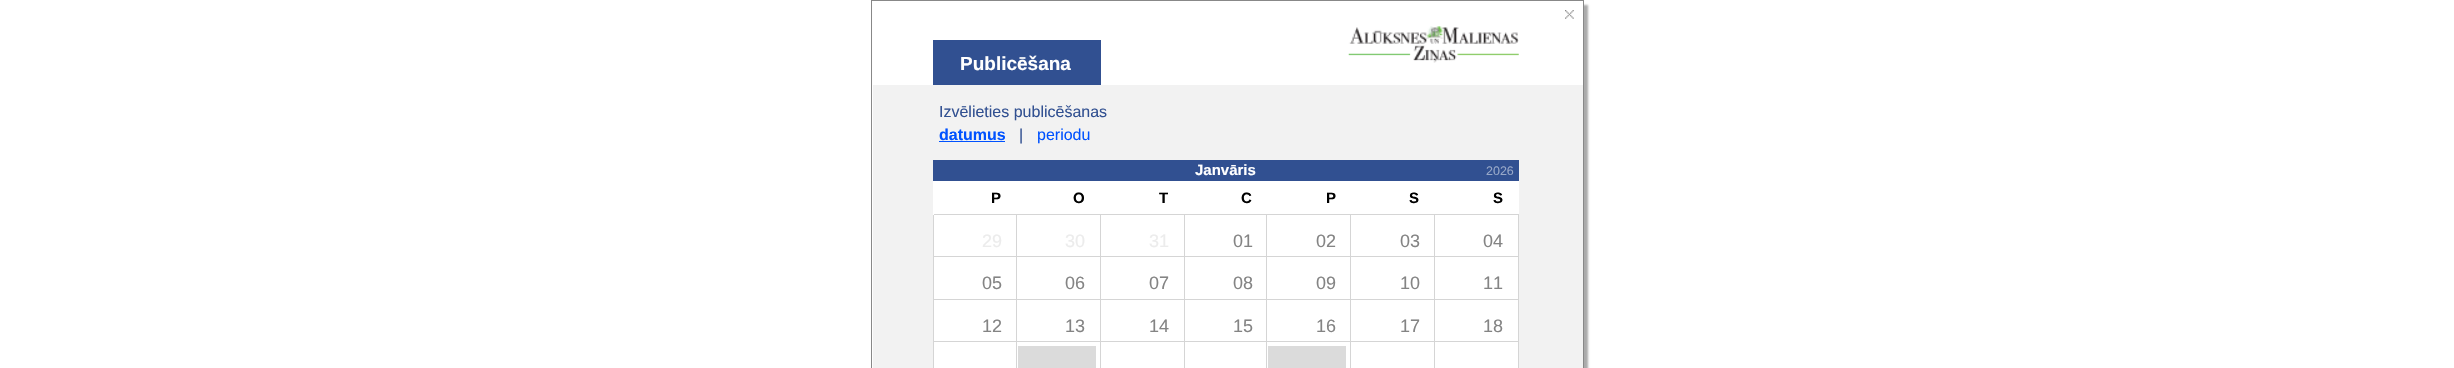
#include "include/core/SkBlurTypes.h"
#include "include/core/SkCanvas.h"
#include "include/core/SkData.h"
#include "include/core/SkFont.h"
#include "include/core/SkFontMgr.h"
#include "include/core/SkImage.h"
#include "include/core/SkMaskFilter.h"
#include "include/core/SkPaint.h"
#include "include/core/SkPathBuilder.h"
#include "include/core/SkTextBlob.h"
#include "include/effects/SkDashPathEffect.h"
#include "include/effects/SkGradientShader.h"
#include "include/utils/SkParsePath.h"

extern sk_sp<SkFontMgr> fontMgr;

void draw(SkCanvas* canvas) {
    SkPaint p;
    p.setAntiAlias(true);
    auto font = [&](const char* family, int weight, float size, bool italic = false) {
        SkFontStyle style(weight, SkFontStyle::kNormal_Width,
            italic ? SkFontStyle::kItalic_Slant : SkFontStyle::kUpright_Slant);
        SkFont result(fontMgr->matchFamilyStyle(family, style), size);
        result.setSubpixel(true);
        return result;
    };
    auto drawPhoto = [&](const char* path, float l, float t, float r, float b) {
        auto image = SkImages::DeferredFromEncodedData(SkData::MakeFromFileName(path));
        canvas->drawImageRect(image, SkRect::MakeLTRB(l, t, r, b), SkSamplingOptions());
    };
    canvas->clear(0xFFFFFFFF);
    p.setColor(0x54000000);
    p.setMaskFilter(SkMaskFilter::MakeBlur(kNormal_SkBlurStyle, 1));
    canvas->drawRect(SkRect::MakeLTRB(875, 5, 1588, 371), p);
    p.setMaskFilter(nullptr);
    p.setColor(0xFFFFFFFF);
    canvas->drawRect(SkRect::MakeLTRB(873, 3, 1583, 368), p);
    p.setStyle(SkPaint::kStroke_Style);
    p.setStrokeWidth(1);
    p.setColor(0xFF888888);
    canvas->drawRect(SkRect::MakeLTRB(871.5f, 0.5f, 1583.5f, 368.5f), p);
    drawPhoto("media/1.png", 1565, 10, 1574, 19);
    p.setStyle(SkPaint::kFill_Style);
    p.setColor(0xFF315091);
    canvas->drawRect(SkRect::MakeLTRB(933, 40, 1101, 85), p);
    auto font1 = font("Liberation Sans", 700, 19);
    p.setColor(0xFFFFFFFF);
    canvas->drawString("Publicēšana", 960, 70, font1, p);
    drawPhoto("media/2.png", 1348, 26, 1519, 63);
    p.setColor(0xFFF2F2F2);
    canvas->drawRect(SkRect::MakeLTRB(873, 85, 1583, 368), p);
    auto font2 = font("Liberation Sans", 400, 16);
    p.setColor(0xFF315091);
    canvas->drawString("Izvēlieties publicēšanas", 939, 117, font2, p);
    auto font3 = font("Liberation Sans", 700, 16);
    p.setColor(0xFF0052FF);
    canvas->drawString("datumus", 939, 140, font3, p);
    canvas->drawRect(SkRect::MakeLTRB(939, 141, 1005, 142), p);
    p.setColor(0xFF315091);
    canvas->drawString("|", 1019, 140, font2, p);
    p.setColor(0xFF0052FF);
    canvas->drawString("periodu", 1037, 140, font2, p);
    p.setColor(0xFF315091);
    canvas->drawRect(SkRect::MakeLTRB(933, 160, 1519, 181), p);
    auto font4 = font("Liberation Sans", 700, 15);
    p.setColor(0xFFFFFFFF);
    canvas->drawString("Janvāris", 1195, 175, font4, p);
    auto font5 = font("Liberation Sans", 400, 12.5f);
    p.setColor(0xFF98A8C8);
    canvas->drawString("2026", 1486, 175, font5, p);
    {
        const struct { float l, t, r, b; SkColor color; } items[] = {
            {934, 181, 1518, 368, 0xFFFFFFFF},
            {1434, 256, 1519, 257, 0xFFD5D5D5},
            {1434, 299, 1519, 300, 0xFFD5D5D5},
            {1434, 341, 1519, 342, 0xFFD5D5D5},
            {1518, 341, 1519, 368, 0xFFD5D5D5},
            {1518, 299, 1519, 343, 0xFFD5D5D5},
            {1518, 214, 1519, 300, 0xFFD5D5D5},
            {1518, 181, 1519, 215, 0xFFFFFFFF},
            {1434, 341, 1435, 368, 0xFFD5D5D5},
            {1350, 341, 1435, 342, 0xFFD5D5D5},
            {1434, 299, 1435, 343, 0xFFD5D5D5},
            {1350, 299, 1435, 300, 0xFFD5D5D5},
            {1434, 256, 1435, 300, 0xFFD5D5D5},
            {1350, 256, 1435, 257, 0xFFD5D5D5},
            {1434, 214, 1435, 258, 0xFFD5D5D5},
            {1434, 214, 1519, 215, 0xFFD5D5D5},
            {1434, 214, 1435, 215, 0xFFFFFFFF},
            {1350, 341, 1351, 368, 0xFFD5D5D5},
            {1266, 341, 1351, 342, 0xFFD5D5D5},
            {1350, 299, 1351, 343, 0xFFD5D5D5},
            {1266, 299, 1351, 300, 0xFFD5D5D5},
            {1350, 256, 1351, 300, 0xFFD5D5D5},
            {1266, 256, 1351, 257, 0xFFD5D5D5},
            {1350, 214, 1351, 258, 0xFFD5D5D5},
            {1350, 214, 1435, 215, 0xFFD5D5D5},
            {1350, 214, 1351, 215, 0xFFFFFFFF},
            {1266, 341, 1267, 368, 0xFFD5D5D5},
            {1184, 341, 1268, 342, 0xFFD5D5D5},
            {1266, 299, 1267, 343, 0xFFD5D5D5},
            {1184, 299, 1268, 300, 0xFFD5D5D5},
            {1266, 256, 1267, 300, 0xFFD5D5D5},
            {1184, 256, 1268, 257, 0xFFD5D5D5},
            {1266, 214, 1267, 258, 0xFFD5D5D5},
            {1266, 214, 1351, 215, 0xFFD5D5D5},
            {1266, 214, 1267, 215, 0xFFFFFFFF},
            {1184, 341, 1185, 368, 0xFFD5D5D5},
            {1100, 341, 1185, 342, 0xFFD5D5D5},
            {1184, 299, 1185, 343, 0xFFD5D5D5},
            {1100, 299, 1185, 300, 0xFFD5D5D5},
            {1184, 256, 1185, 300, 0xFFD5D5D5},
            {1100, 256, 1185, 257, 0xFFD5D5D5},
            {1184, 214, 1185, 258, 0xFFD5D5D5},
            {1184, 214, 1268, 215, 0xFFD5D5D5},
            {1184, 214, 1185, 215, 0xFFFFFFFF},
            {1100, 341, 1101, 368, 0xFFD5D5D5},
            {1016, 341, 1101, 342, 0xFFD5D5D5},
            {1100, 299, 1101, 343, 0xFFD5D5D5},
            {1016, 299, 1101, 300, 0xFFD5D5D5},
            {1100, 256, 1101, 300, 0xFFD5D5D5},
            {1016, 256, 1101, 257, 0xFFD5D5D5},
            {1100, 214, 1101, 258, 0xFFD5D5D5},
            {1100, 214, 1185, 215, 0xFFD5D5D5},
            {1100, 214, 1101, 215, 0xFFFFFFFF},
            {1016, 341, 1017, 368, 0xFFD5D5D5},
            {933, 341, 1018, 342, 0xFFD5D5D5},
            {1016, 299, 1017, 343, 0xFFD5D5D5},
            {933, 299, 1018, 300, 0xFFD5D5D5},
            {1016, 256, 1017, 300, 0xFFD5D5D5},
            {933, 256, 1018, 257, 0xFFD5D5D5},
            {1016, 214, 1017, 258, 0xFFD5D5D5},
            {1016, 214, 1101, 215, 0xFFD5D5D5},
            {1016, 214, 1017, 215, 0xFFFFFFFF},
            {933, 341, 934, 368, 0xFFD5D5D5},
            {933, 299, 934, 343, 0xFFD5D5D5},
            {933, 214, 934, 300, 0xFFD5D5D5},
            {933, 214, 1018, 215, 0xFFD5D5D5},
            {933, 181, 934, 215, 0xFFFFFFFF},
        };
        for (auto [l, t, r, b, color] : items) {
            p.setColor(color);
            canvas->drawRect(SkRect::MakeLTRB(l, t, r, b), p);
        }
    }
    p.setColor(0xFF000000);
    {
        const struct { const char* s; float x, y; } items[] = {
            {"P", 991, 203},
            {"O", 1073, 203},
            {"T", 1159, 203},
            {"C", 1241, 203},
            {"P", 1326, 203},
            {"S", 1409, 203},
            {"S", 1493, 203},
        };
        for (auto [s, x, y] : items) {
            canvas->drawString(s, x, y, font4, p);
        }
    }
    auto font6 = font("Liberation Sans", 400, 18);
    p.setColor(0xFFECECEC);
    {
        const struct { const char* s; float x, y; } items[] = {
            {"29", 982, 247},
            {"30", 1065, 247},
            {"31", 1149, 247},
        };
        for (auto [s, x, y] : items) {
            canvas->drawString(s, x, y, font6, p);
        }
    }
    p.setColor(0xFF848484);
    {
        const struct { const char* s; float x, y; } items[] = {
            {"01", 1233, 247},
            {"02", 1316, 247},
            {"03", 1400, 247},
            {"04", 1483, 247},
            {"05", 982, 289},
            {"06", 1065, 289},
            {"07", 1149, 289},
            {"08", 1233, 289},
            {"09", 1316, 289},
            {"10", 1400, 289},
            {"11", 1483, 289},
            {"12", 982, 332},
            {"13", 1065, 332},
            {"14", 1149, 332},
            {"15", 1233, 332},
            {"16", 1316, 332},
            {"17", 1400, 332},
            {"18", 1483, 332},
        };
        for (auto [s, x, y] : items) {
            canvas->drawString(s, x, y, font6, p);
        }
    }
    p.setColor(0xFFDBDBDB);
    canvas->drawRect(SkRect::MakeLTRB(1018, 346, 1096, 368), p);
    canvas->drawRect(SkRect::MakeLTRB(1268, 346, 1346, 368), p);
}
